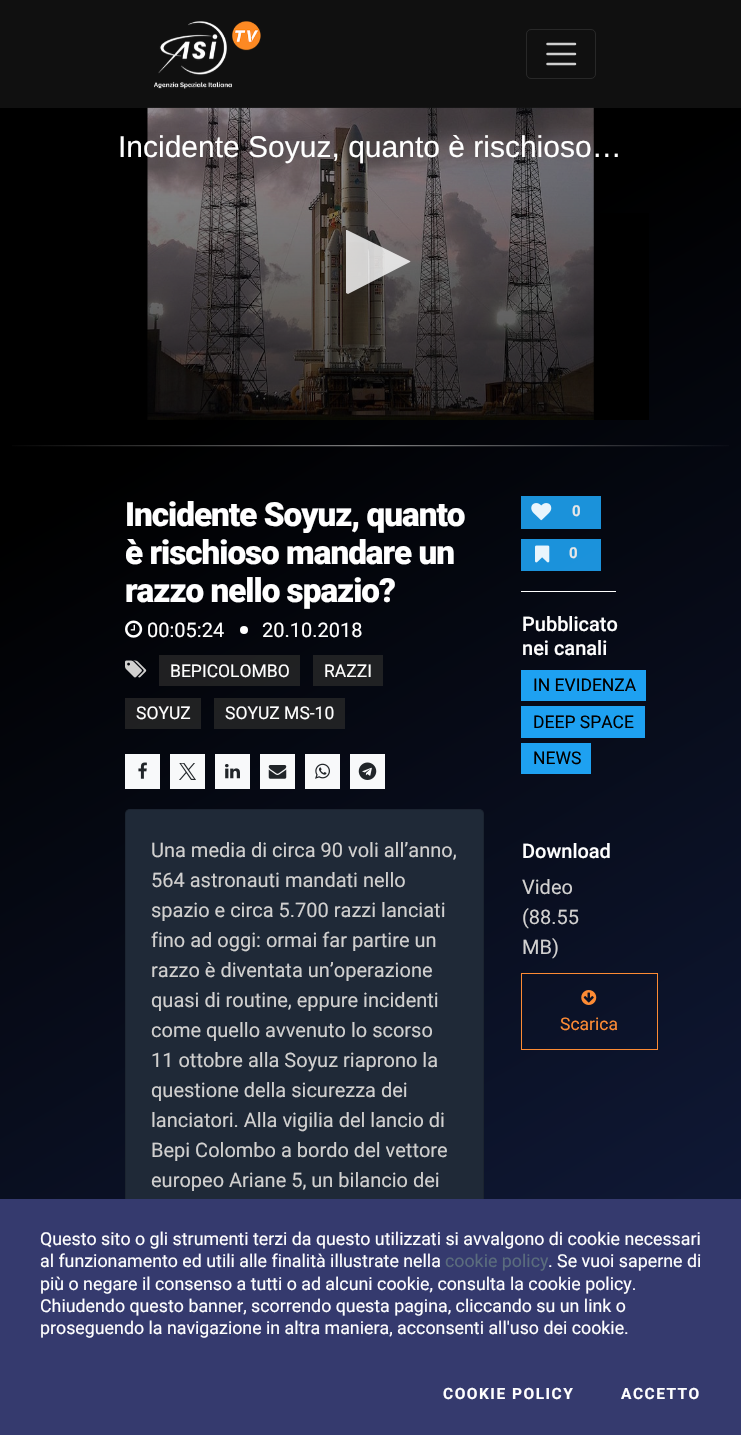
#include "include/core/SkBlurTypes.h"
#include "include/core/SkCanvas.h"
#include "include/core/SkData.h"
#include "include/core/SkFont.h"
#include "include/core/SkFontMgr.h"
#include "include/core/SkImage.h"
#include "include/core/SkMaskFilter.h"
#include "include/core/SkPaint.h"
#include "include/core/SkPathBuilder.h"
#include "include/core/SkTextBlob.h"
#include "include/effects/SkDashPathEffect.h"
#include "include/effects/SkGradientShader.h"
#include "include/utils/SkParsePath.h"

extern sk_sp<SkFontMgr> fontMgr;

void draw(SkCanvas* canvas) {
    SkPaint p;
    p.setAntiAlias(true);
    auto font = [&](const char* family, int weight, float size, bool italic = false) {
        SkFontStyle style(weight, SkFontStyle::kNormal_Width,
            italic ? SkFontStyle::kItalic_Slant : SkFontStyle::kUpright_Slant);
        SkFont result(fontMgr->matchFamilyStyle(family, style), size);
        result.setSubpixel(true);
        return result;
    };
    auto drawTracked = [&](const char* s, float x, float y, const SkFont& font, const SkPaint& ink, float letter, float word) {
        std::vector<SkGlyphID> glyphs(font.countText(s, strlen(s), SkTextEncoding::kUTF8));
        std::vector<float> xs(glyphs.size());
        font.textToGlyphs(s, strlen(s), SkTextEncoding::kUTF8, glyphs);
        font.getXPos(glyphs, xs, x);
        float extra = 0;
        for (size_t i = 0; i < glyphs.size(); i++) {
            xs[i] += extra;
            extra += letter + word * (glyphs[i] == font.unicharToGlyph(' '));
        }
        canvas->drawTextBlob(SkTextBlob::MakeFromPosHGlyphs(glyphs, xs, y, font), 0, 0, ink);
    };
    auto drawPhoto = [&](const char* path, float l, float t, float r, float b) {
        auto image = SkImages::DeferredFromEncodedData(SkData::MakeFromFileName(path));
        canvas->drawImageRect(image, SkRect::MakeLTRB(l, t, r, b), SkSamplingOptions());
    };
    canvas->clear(0xFFFFFFFF);
    {
        const SkColor colors[] = {0xFF000000, 0xFF1E3069};
        const float stops[] = {0.2f, 1};
        const SkPoint ends[] = {{-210, 121}, {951, 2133}};
        p.setShader(SkGradientShader::MakeLinear(ends, colors, stops, 2, SkTileMode::kClamp));
        p.setAlpha(255);
    }
    canvas->drawRect(SkRect::MakeLTRB(0, 0, 741, 1199), p);
    {
        const SkColor colors[] = {0xFF1B91D9, 0xFF1E96E3};
        const float stops[] = {0.2f, 1};
        const SkPoint ends[] = {{-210, 121}, {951, 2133}};
        p.setShader(SkGradientShader::MakeLinear(ends, colors, stops, 2, SkTileMode::kClamp));
        p.setAlpha(255);
    }
    canvas->drawRect(SkRect::MakeLTRB(521, 539, 601, 571), p);
    canvas->drawRect(SkRect::MakeLTRB(521, 496, 601, 529), p);
    {
        const SkColor colors[] = {0xFF1F1F1F, 0xFF262B38};
        const float stops[] = {0.2f, 1};
        const SkPoint ends[] = {{-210, 121}, {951, 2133}};
        p.setShader(SkGradientShader::MakeLinear(ends, colors, stops, 2, SkTileMode::kClamp));
        p.setAlpha(255);
    }
    canvas->drawRect(SkRect::MakeLTRB(214, 698, 345, 729), p);
    canvas->drawRect(SkRect::MakeLTRB(125, 698, 201, 729), p);
    canvas->drawRect(SkRect::MakeLTRB(313, 655, 383, 686), p);
    canvas->drawRect(SkRect::MakeLTRB(159, 655, 300, 686), p);
    p.setShader(nullptr);
    p.setColor(0xFF000000);
    canvas->drawRect(SkRect::MakeLTRB(291, 213, 649, 420), p);
    drawPhoto("media/3.png", 147, 107, 594, 420);
    p.setColor(0xCC141414);
    canvas->drawRect(SkRect::MakeLTRB(0, 0, 741, 108), p);
    drawPhoto("media/1.png", 154, 21, 261, 89);
    p.setStyle(SkPaint::kStroke_Style);
    p.setStrokeWidth(1);
    p.setColor(0xFF282828);
    canvas->drawRoundRect(SkRect::MakeLTRB(526.5f, 29.5f, 595.5f, 78.5f), 4.5f, 4.5f, p);
    p.setStrokeWidth(2.5f);
    p.setStrokeCap(SkPaint::kRound_Cap);
    p.setColor(0xFFCFCFCF);
    canvas->drawPath(SkPathBuilder().moveTo(547.5f, 44).lineTo(575, 44).moveTo(547.5f, 54).lineTo(575, 54).moveTo(547.5f, 64).lineTo(575, 64).detach(), p);
    drawPhoto("media/2.png", 12, 445, 729, 447);
    p.setStyle(SkPaint::kFill_Style);
    {
        const SkColor colors[] = {0x00000000, 0x66000000, 0x66000000};
        const float stops[] = {0, 0.77f, 1};
        const SkPoint ends[] = {{371, 120}, {371, 420}};
        p.setShader(SkGradientShader::MakeLinear(ends, colors, stops, 3, SkTileMode::kClamp));
        p.setAlpha(255);
    }
    canvas->drawRect(SkRect::MakeLTRB(147, 132, 594, 420), p);
    auto font1 = font("Liberation Sans", 400, 30);
    p.setShader(nullptr);
    p.setColor(0xFFFFFFFF);
    canvas->drawString("Incidente Soyuz, quanto è rischioso…", 118, 157, font1, p);
    p.setColor(0xCCFFFFFF);
    canvas->drawPath(SkPathBuilder().moveTo(348, 294).lineTo(346, 293).lineTo(346, 230).lineTo(347, 230).lineTo(410, 261).cubicTo(410, 261, 411, 262, 410, 262).close().detach(), p);
    auto font2 = font("Roboto", 900, 33.25f);
    p.setColor(0xFFFFFFFF);
    {
        const struct { const char* s; float x, y; } items[] = {
            {"Incidente Soyuz, quanto", 125, 526},
            {"è rischioso mandare un", 125, 564},
            {"razzo nello spazio?", 125, 602},
        };
        for (auto [s, x, y] : items) {
            drawTracked(s, x, y, font2, p, -1, 0);
        }
    }
    drawPhoto("media/4.png", 125, 620, 143, 638);
    auto font3 = font("Roboto", 400, 20);
    canvas->drawString("00:05:24", 147, 637, font3, p);
    canvas->drawCircle(244, 630, 4, p);
    canvas->drawString("20.10.2018", 262, 637, font3, p);
    drawPhoto("media/5.png", 125, 660, 147, 678);
    auto font4 = font("Roboto", 400, 17.5f);
    {
        const struct { const char* s; float x, y; } items[] = {
            {"BEPICOLOMBO", 170, 677},
            {"RAZZI", 324, 677},
            {"SOYUZ", 136, 719},
            {"SOYUZ MS-10", 225, 719},
        };
        for (auto [s, x, y] : items) {
            canvas->drawString(s, x, y, font4, p);
        }
    }
    p.setColor(0xFFF8F9FA);
    canvas->drawRect(SkRect::MakeLTRB(125, 754, 160, 789), p);
    drawPhoto("media/6.png", 138, 762, 147, 779);
    canvas->drawRect(SkRect::MakeLTRB(170, 754, 205, 789), p);
    drawPhoto("media/7.png", 179, 763, 196, 780);
    canvas->drawRect(SkRect::MakeLTRB(215, 754, 250, 789), p);
    drawPhoto("media/8.png", 225, 764, 240, 779);
    canvas->drawRect(SkRect::MakeLTRB(260, 754, 295, 789), p);
    drawPhoto("media/9.png", 268, 765, 287, 779);
    canvas->drawRect(SkRect::MakeLTRB(305, 754, 340, 789), p);
    drawPhoto("media/10.png", 315, 763, 330, 779);
    canvas->drawRect(SkRect::MakeLTRB(350, 754, 385, 789), p);
    drawPhoto("media/11.png", 358, 762, 377, 780);
    p.setColor(0xFF1F2937);
    canvas->drawRoundRect(SkRect::MakeLTRB(125, 809, 484, 1251), 5, 5, p);
    p.setStyle(SkPaint::kStroke_Style);
    p.setStrokeWidth(1);
    p.setStrokeCap(SkPaint::kButt_Cap);
    p.setColor(0x1F000000);
    canvas->drawRoundRect(SkRect::MakeLTRB(125.5f, 809.5f, 483.5f, 1250.5f), 4.5f, 4.5f, p);
    p.setStyle(SkPaint::kFill_Style);
    p.setColor(0xFFD1D0CF);
    {
        const struct { const char* s; float x, y; } items[] = {
            {"Una media di circa 90 voli all’anno,", 151, 857},
            {"564 astronauti mandati nello", 151, 887},
            {"spazio e circa 5.700 razzi lanciati", 151, 917},
            {"fino ad oggi: ormai far partire un", 151, 947},
            {"razzo è diventata un’operazione", 151, 977},
            {"quasi di routine, eppure incidenti", 151, 1007},
            {"come quello avvenuto lo scorso", 151, 1037},
            {"11 ottobre alla Soyuz riaprono la", 151, 1067},
            {"questione della sicurezza dei", 151, 1097},
            {"lanciatori. Alla vigilia del lancio di", 151, 1127},
            {"Bepi Colombo a bordo del vettore", 151, 1157},
            {"europeo Ariane 5, un bilancio dei", 151, 1187},
        };
        for (auto [s, x, y] : items) {
            canvas->drawString(s, x, y, font3, p);
        }
    }
    p.setColor(0xFFFFFFFF);
    canvas->drawRect(SkRect::MakeLTRB(521, 591, 616, 592), p);
    drawPhoto("media/12.png", 531, 503, 552, 521);
    auto font5 = font("Roboto", 700, 15);
    p.setColor(0xFFE6E6E7);
    canvas->drawString("0", 572, 516, font5, p);
    drawPhoto("media/13.png", 535, 545, 550, 563);
    canvas->drawString("0", 569, 558, font5, p);
    auto font6 = font("Roboto", 500, 20);
    p.setColor(0xFFFFFFFF);
    canvas->drawString("Pubblicato", 522, 631, font6, p);
    canvas->drawString("nei canali", 522, 655, font6, p);
    p.setColor(0xFF1EA1F1);
    canvas->drawRect(SkRect::MakeLTRB(521, 670, 646, 701), p);
    p.setColor(0xFF000000);
    canvas->drawString("IN EVIDENZA", 533, 691, font4, p);
    p.setColor(0xFF1EA1F1);
    canvas->drawRect(SkRect::MakeLTRB(521, 706, 645, 738), p);
    p.setColor(0xFF000000);
    canvas->drawString("DEEP SPACE", 533, 728, font4, p);
    p.setColor(0xFF1EA1F1);
    canvas->drawRect(SkRect::MakeLTRB(521, 743, 591, 774), p);
    p.setColor(0xFF000000);
    canvas->drawString("NEWS", 533, 764, font4, p);
    p.setColor(0xFFFFFFFF);
    canvas->drawString("Download", 522, 858, font6, p);
    p.setColor(0xFFD1D0CF);
    {
        const struct { const char* s; float x, y; } items[] = {
            {"Video", 522, 894},
            {"(88.55", 522, 924},
            {"MB)", 522, 954},
        };
        for (auto [s, x, y] : items) {
            canvas->drawString(s, x, y, font3, p);
        }
    }
    p.setStyle(SkPaint::kStroke_Style);
    p.setColor(0xFFFD8B34);
    canvas->drawRect(SkRect::MakeLTRB(521.5f, 973.5f, 657.5f, 1049.5f), p);
    drawPhoto("media/14.png", 581, 990, 597, 1005);
    p.setStyle(SkPaint::kFill_Style);
    canvas->drawString("Scarica", 560, 1030, font4, p);
    p.setColor(0xFF353A6E);
    canvas->drawRect(SkRect::MakeLTRB(0, 1199, 741, 1435), p);
    auto font7 = font("Roboto", 400, 17.8f);
    p.setColor(0xFFFFFFFF);
    canvas->drawString("Questo sito o gli strumenti terzi da questo utilizzati si avvalgono di cookie necessari", 40, 1245, font7, p);
    canvas->drawString("al funzionamento ed utili alle finalità illustrate nella", 40, 1267, font7, p);
    p.setColor(0xFF5A6C7D);
    canvas->drawString("cookie policy", 445, 1267, font7, p);
    p.setColor(0xFFFFFFFF);
    {
        const struct { const char* s; float x, y; } items[] = {
            {". Se vuoi saperne di", 548, 1267},
            {"più o negare il consenso a tutti o ad alcuni cookie, consulta la cookie policy.", 40, 1290},
            {"Chiudendo questo banner, scorrendo questa pagina, cliccando su un link o", 40, 1312},
            {"proseguendo la navigazione in altra maniera, acconsenti all'uso dei cookie.", 40, 1334},
        };
        for (auto [s, x, y] : items) {
            canvas->drawString(s, x, y, font7, p);
        }
    }
    auto font8 = font("Roboto", 700, 15.5f);
    drawTracked("COOKIE POLICY", 443, 1399, font8, p, 1.5f, 0);
    drawTracked("ACCETTO", 621, 1399, font8, p, 1.5f, 0);
}
